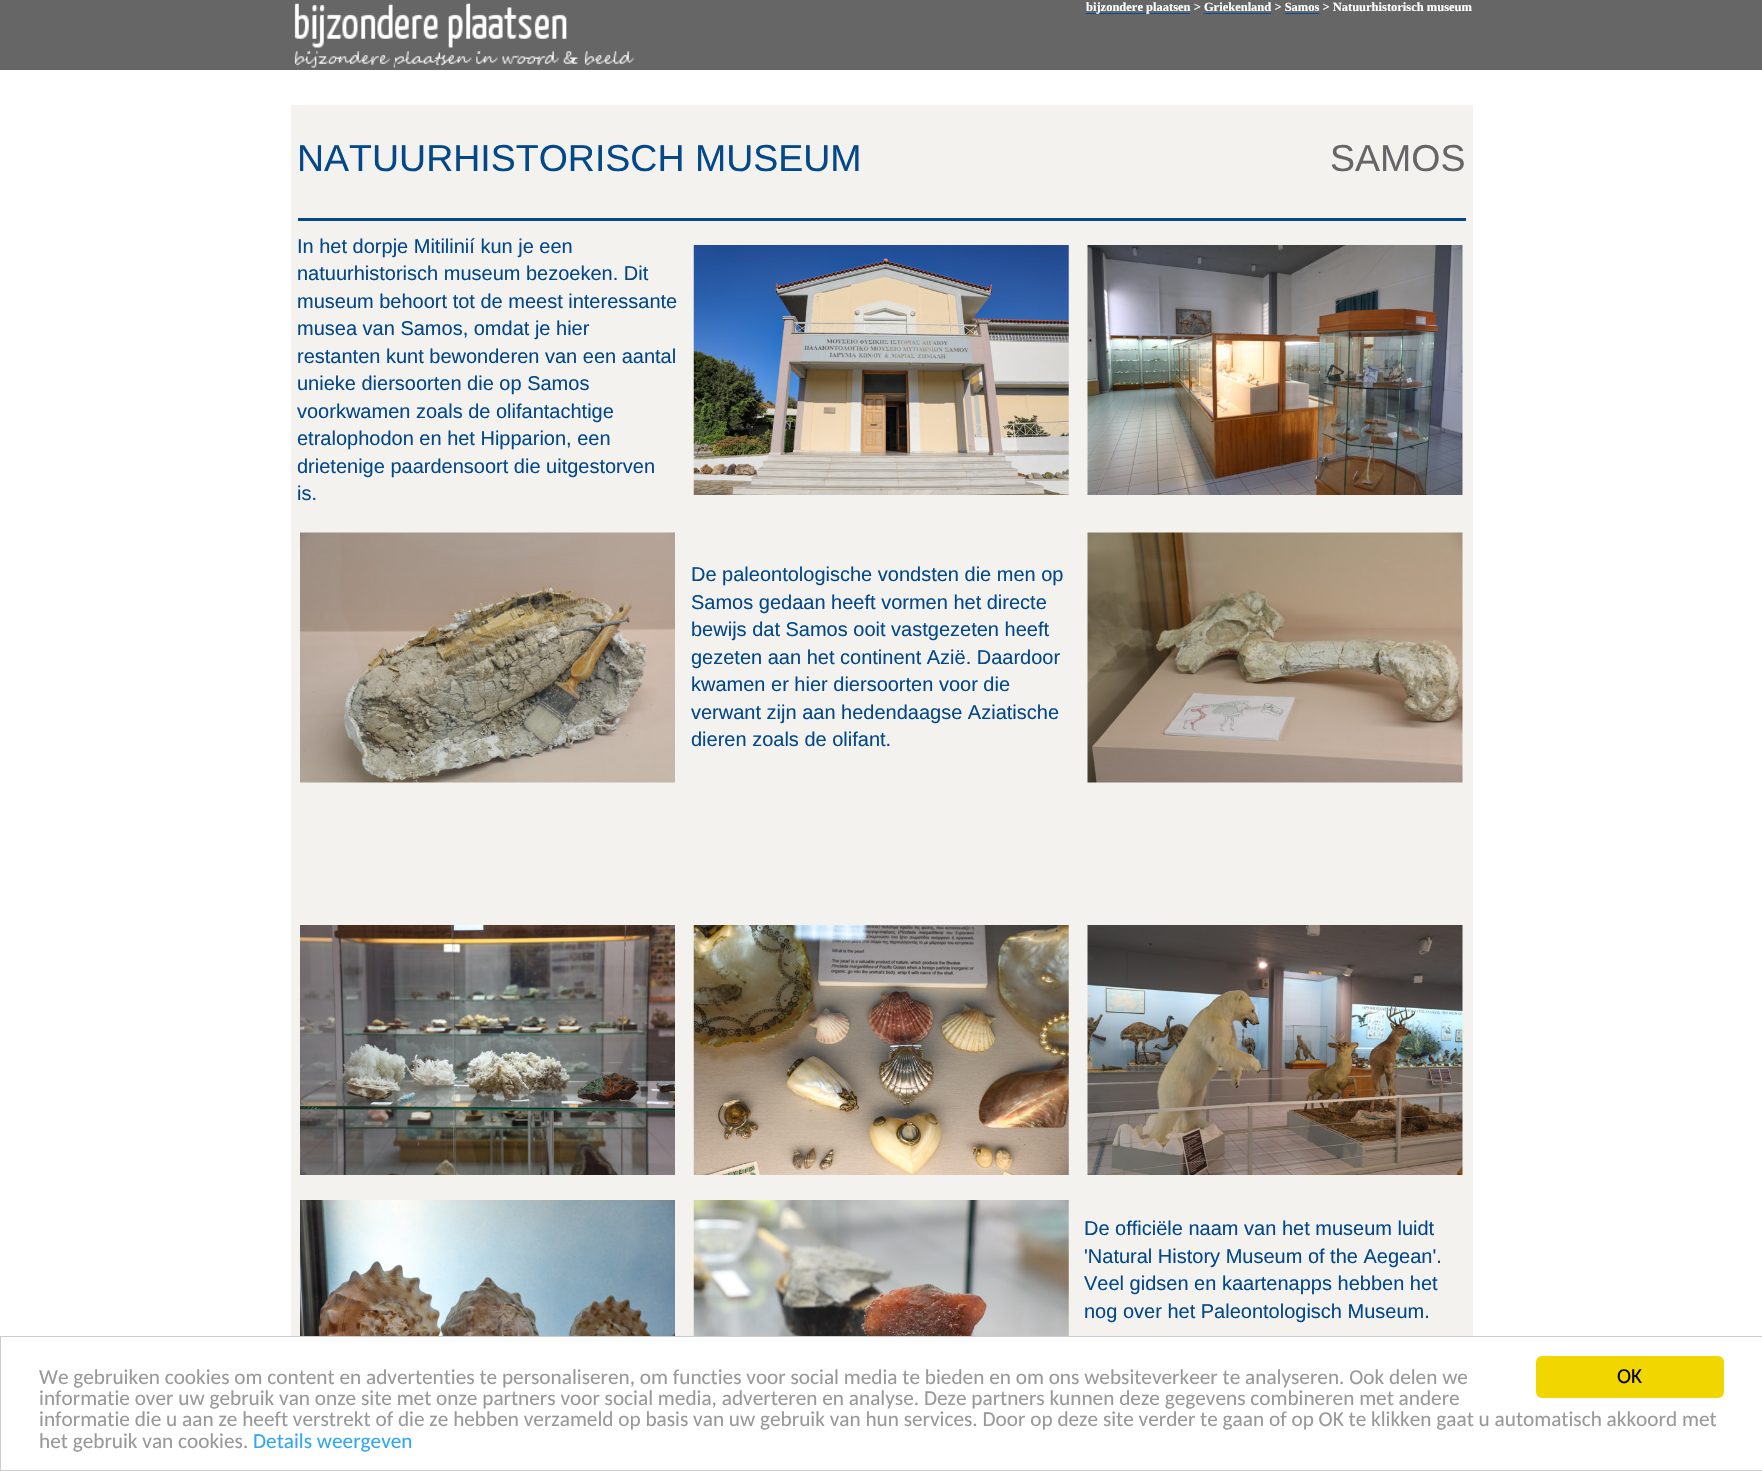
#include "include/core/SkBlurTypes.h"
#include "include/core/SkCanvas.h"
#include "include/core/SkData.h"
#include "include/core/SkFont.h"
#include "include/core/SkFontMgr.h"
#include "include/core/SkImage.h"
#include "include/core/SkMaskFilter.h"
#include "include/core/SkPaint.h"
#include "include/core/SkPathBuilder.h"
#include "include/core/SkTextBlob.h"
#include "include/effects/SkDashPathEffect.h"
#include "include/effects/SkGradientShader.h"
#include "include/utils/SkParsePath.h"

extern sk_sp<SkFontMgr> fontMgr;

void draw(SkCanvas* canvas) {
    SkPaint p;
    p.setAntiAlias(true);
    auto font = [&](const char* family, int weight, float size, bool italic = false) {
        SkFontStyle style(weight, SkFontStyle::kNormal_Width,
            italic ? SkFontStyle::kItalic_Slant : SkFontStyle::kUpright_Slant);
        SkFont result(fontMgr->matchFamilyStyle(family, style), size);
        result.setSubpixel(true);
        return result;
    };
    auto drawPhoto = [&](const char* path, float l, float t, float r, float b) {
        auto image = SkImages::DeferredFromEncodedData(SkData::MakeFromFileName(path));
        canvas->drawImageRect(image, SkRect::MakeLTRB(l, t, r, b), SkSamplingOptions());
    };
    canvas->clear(0xFF666666);
    drawPhoto("media/1.png", 294, 3, 634, 68);
    p.setColor(0xFF034B9B);
    canvas->drawRect(SkRect::MakeLTRB(1086, 13, 1190, 14), p);
    auto font1 = font("Liberation Serif", 700, 12.5f);
    p.setColor(0xFFFFFFFF);
    canvas->drawString("bijzondere plaatsen > Griekenland > Samos > Natuurhistorisch museum", 1086, 11, font1, p);
    {
        const struct { float l, t, r, b; SkColor color; } items[] = {
            {1204, 13, 1271, 14, 0xFF034B9B},
            {1285, 13, 1319, 14, 0xFF034B9B},
            {0, 70, 1762, 1336, 0xFFFFFFFF},
            {291, 105, 1473, 1336, 0xFFF3F2EF},
        };
        for (auto [l, t, r, b, color] : items) {
            p.setColor(color);
            canvas->drawRect(SkRect::MakeLTRB(l, t, r, b), p);
        }
    }
    auto font2 = font("Liberation Sans", 400, 37.5f);
    p.setColor(0xFF034889);
    canvas->drawString("NATUURHISTORISCH MUSEUM", 297, 171, font2, p);
    p.setColor(0xFF666666);
    canvas->drawString("SAMOS", 1330, 171, font2, p);
    p.setColor(0xFF034889);
    canvas->drawRect(SkRect::MakeLTRB(298, 218, 1466, 221), p);
    auto font3 = font("Liberation Sans", 400, 20);
    {
        const struct { const char* s; float x, y; } items[] = {
            {"In het dorpje Mitilinií kun je een", 297, 253},
            {"natuurhistorisch museum bezoeken. Dit", 297, 280},
            {"museum behoort tot de meest interessante", 297, 308},
            {"musea van Samos, omdat je hier", 297, 335},
            {"restanten kunt bewonderen van een aantal", 297, 363},
            {"unieke diersoorten die op Samos", 297, 390},
            {"voorkwamen zoals de olifantachtige", 297, 418},
            {"etralophodon en het Hipparion, een", 297, 445},
            {"drietenige paardensoort die uitgestorven", 297, 473},
            {"is.", 297, 500},
        };
        for (auto [s, x, y] : items) {
            canvas->drawString(s, x, y, font3, p);
        }
    }
    drawPhoto("media/2.png", 693, 245, 1069, 495);
    drawPhoto("media/3.png", 1087, 245, 1463, 495);
    drawPhoto("media/4.png", 300, 532, 675, 783);
    {
        const struct { const char* s; float x, y; } items[] = {
            {"De paleontologische vondsten die men op", 691, 581},
            {"Samos gedaan heeft vormen het directe", 691, 609},
            {"bewijs dat Samos ooit vastgezeten heeft", 691, 636},
            {"gezeten aan het continent Azië. Daardoor", 691, 664},
            {"kwamen er hier diersoorten voor die", 691, 691},
            {"verwant zijn aan hedendaagse Aziatische", 691, 719},
            {"dieren zoals de olifant.", 691, 746},
        };
        for (auto [s, x, y] : items) {
            canvas->drawString(s, x, y, font3, p);
        }
    }
    drawPhoto("media/5.png", 1087, 532, 1463, 783);
    drawPhoto("media/6.png", 300, 925, 675, 1175);
    drawPhoto("media/7.png", 693, 925, 1069, 1175);
    drawPhoto("media/8.png", 1087, 925, 1463, 1175);
    drawPhoto("media/9.png", 300, 1200, 675, 1336);
    drawPhoto("media/10.png", 693, 1200, 1069, 1336);
    {
        const struct { const char* s; float x, y; } items[] = {
            {"De officiële naam van het museum luidt", 1084, 1235},
            {"'Natural History Museum of the Aegean'.", 1084, 1263},
            {"Veel gidsen en kaartenapps hebben het", 1084, 1290},
            {"nog over het Paleontologisch Museum.", 1084, 1318},
        };
        for (auto [s, x, y] : items) {
            canvas->drawString(s, x, y, font3, p);
        }
    }
    p.setColor(0xFFFFFFFF);
    canvas->drawRect(SkRect::MakeLTRB(0.5f, 1336.5f, 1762.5f, 1470.5f), p);
    p.setStyle(SkPaint::kStroke_Style);
    p.setStrokeWidth(1);
    p.setColor(0xFFCCCCCC);
    canvas->drawRect(SkRect::MakeLTRB(0.5f, 1336.5f, 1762.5f, 1470.5f), p);
    auto font4 = font("Carlito", 400, 21.25f);
    p.setStyle(SkPaint::kFill_Style);
    p.setColor(0xFF999999);
    {
        const struct { const char* s; float x, y; } items[] = {
            {"We gebruiken cookies om content en advertenties te personaliseren, om functies voor social media te bieden en om ons websiteverkeer te analyseren. Ook delen we", 39, 1384},
            {"informatie over uw gebruik van onze site met onze partners voor social media, adverteren en analyse. Deze partners kunnen deze gegevens combineren met andere", 39, 1405},
            {"informatie die u aan ze heeft verstrekt of die ze hebben verzameld op basis van uw gebruik van hun services. Door op deze site verder te gaan of op OK te klikken gaat u automatisch akkoord met", 39, 1426},
            {"het gebruik van cookies.", 39, 1448},
        };
        for (auto [s, x, y] : items) {
            canvas->drawString(s, x, y, font4, p);
        }
    }
    p.setColor(0xFF31A8F0);
    canvas->drawString("Details weergeven", 253, 1448, font4, p);
    p.setColor(0xFFF1D600);
    canvas->drawRoundRect(SkRect::MakeLTRB(1536, 1356, 1724, 1398), 6, 6, p);
    p.setColor(0xFF000000);
    canvas->drawString("OK", 1617, 1383, font4, p);
}
